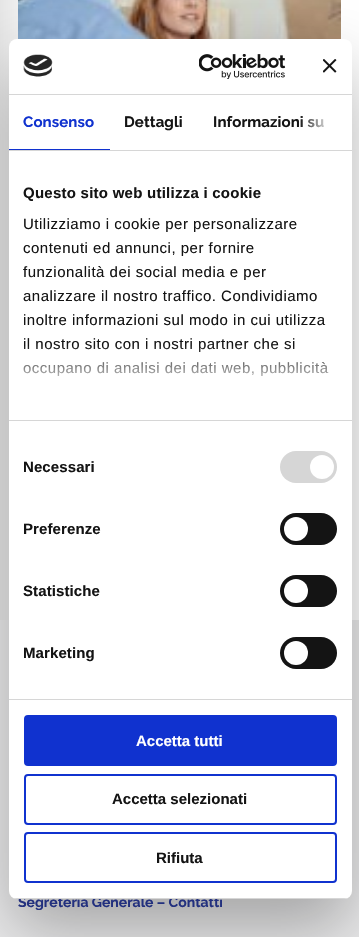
#include "include/core/SkBlurTypes.h"
#include "include/core/SkCanvas.h"
#include "include/core/SkData.h"
#include "include/core/SkFont.h"
#include "include/core/SkFontMgr.h"
#include "include/core/SkImage.h"
#include "include/core/SkMaskFilter.h"
#include "include/core/SkPaint.h"
#include "include/core/SkPathBuilder.h"
#include "include/core/SkTextBlob.h"
#include "include/effects/SkDashPathEffect.h"
#include "include/effects/SkGradientShader.h"
#include "include/utils/SkParsePath.h"

extern sk_sp<SkFontMgr> fontMgr;

void draw(SkCanvas* canvas) {
    SkPaint p;
    p.setAntiAlias(true);
    auto font = [&](const char* family, int weight, float size, bool italic = false) {
        SkFontStyle style(weight, SkFontStyle::kNormal_Width,
            italic ? SkFontStyle::kItalic_Slant : SkFontStyle::kUpright_Slant);
        SkFont result(fontMgr->matchFamilyStyle(family, style), size);
        result.setSubpixel(true);
        return result;
    };
    auto drawTracked = [&](const char* s, float x, float y, const SkFont& font, const SkPaint& ink, float letter, float word) {
        std::vector<SkGlyphID> glyphs(font.countText(s, strlen(s), SkTextEncoding::kUTF8));
        std::vector<float> xs(glyphs.size());
        font.textToGlyphs(s, strlen(s), SkTextEncoding::kUTF8, glyphs);
        font.getXPos(glyphs, xs, x);
        float extra = 0;
        for (size_t i = 0; i < glyphs.size(); i++) {
            xs[i] += extra;
            extra += letter + word * (glyphs[i] == font.unicharToGlyph(' '));
        }
        canvas->drawTextBlob(SkTextBlob::MakeFromPosHGlyphs(glyphs, xs, y, font), 0, 0, ink);
    };
    auto drawPhoto = [&](const char* path, float l, float t, float r, float b) {
        auto image = SkImages::DeferredFromEncodedData(SkData::MakeFromFileName(path));
        canvas->drawImageRect(image, SkRect::MakeLTRB(l, t, r, b), SkSamplingOptions());
    };
    canvas->clear(0xFFFFFFFF);
    drawPhoto("media/4.png", 0, 0, 18, 620);
    drawPhoto("media/5.png", 18, 0, 341, 39);
    p.setColor(0xFFECECED);
    canvas->drawRect(SkRect::MakeLTRB(0, 620, 359, 937), p);
    p.setColor(0x4D000000);
    p.setMaskFilter(SkMaskFilter::MakeBlur(kNormal_SkBlurStyle, 34));
    canvas->drawRoundRect(SkRect::MakeLTRB(9, 71, 352, 931), 8, 8, p);
    p.setMaskFilter(nullptr);
    auto font1 = font("Raleway", 700, 14);
    p.setColor(0xFF22307E);
    canvas->drawString("Segreteria Generale – Contatti", 18, 907, font1, p);
    p.setColor(0xFFFFFFFF);
    canvas->drawRoundRect(SkRect::MakeLTRB(9, 39, 352, 899), 8, 8, p);
    p.setColor(0xFFD6D6D6);
    canvas->drawRect(SkRect::MakeLTRB(9, 94, 352, 95), p);
    drawPhoto("media/1.png", 23, 54, 53, 77);
    drawPhoto("media/2.png", 199, 54, 286, 79);
    drawPhoto("media/3.png", 323, 59, 337, 73);
    canvas->drawRect(SkRect::MakeLTRB(9, 150, 352, 151), p);
    p.setColor(0xFF1032CF);
    canvas->drawRect(SkRect::MakeLTRB(9, 149, 110, 150), p);
    auto font2 = font("Raleway", 700, 15);
    drawTracked("Consenso", 23, 127, font2, p, 0.1f, 0);
    p.setColor(0xFF141414);
    drawTracked("Dettagli", 124, 127, font2, p, 0.1f, 0);
    drawTracked("Informazioni su", 213, 127, font2, p, 0.1f, 0);
    {
        const SkColor colors[] = {0xFFFFFFFF, 0xCCFFFFFF, 0x00FFFFFF};
        const float stops[] = {0, 0.5f, 1};
        const SkPoint ends[] = {{352, 122}, {299, 122}};
        p.setShader(SkGradientShader::MakeLinear(ends, colors, stops, 3, SkTileMode::kClamp));
        p.setAlpha(255);
    }
    canvas->drawRect(SkRect::MakeLTRB(300, 116, 324, 128), p);
    p.setShader(nullptr);
    p.setColor(0xFFD6D6D6);
    canvas->drawRect(SkRect::MakeLTRB(9, 420, 352, 421), p);
    auto font3 = font("Liberation Sans", 700, 15);
    p.setColor(0xFF141414);
    drawTracked("Questo sito web utilizza i cookie", 23, 198, font3, p, 0.25f, 0);
    auto font4 = font("Liberation Sans", 400, 15);
    {
        const struct { const char* s; float x, y; } items[] = {
            {"Utilizziamo i cookie per personalizzare", 23, 229},
            {"contenuti ed annunci, per fornire", 23, 253},
            {"funzionalità dei social media e per", 23, 277},
            {"analizzare il nostro traffico. Condividiamo", 23, 301},
            {"inoltre informazioni sul modo in cui utilizza", 23, 325},
            {"il nostro sito con i nostri partner che si", 23, 349},
            {"occupano di analisi dei dati web, pubblicità", 23, 373},
        };
        for (auto [s, x, y] : items) {
            drawTracked(s, x, y, font4, p, 0.5f, 0);
        }
    }
    {
        const SkColor colors[] = {0xFFFFFFFF, 0xCCFFFFFF, 0x00FFFFFF};
        const float stops[] = {0, 0.5f, 1};
        const SkPoint ends[] = {{174, 420}, {174, 345}};
        p.setShader(SkGradientShader::MakeLinear(ends, colors, stops, 3, SkTileMode::kClamp));
        p.setAlpha(255);
    }
    canvas->drawRect(SkRect::MakeLTRB(23, 346, 328, 377), p);
    p.setShader(nullptr);
    p.setColor(0xFFD6D6D6);
    canvas->drawRect(SkRect::MakeLTRB(9, 699, 352, 700), p);
    p.setColor(0xFF141414);
    drawTracked("Necessari", 23, 472, font3, p, 0.1f, 0);
    p.setColor(0xFFD6D6D6);
    canvas->drawRoundRect(SkRect::MakeLTRB(280, 451, 337, 483), 16, 16, p);
    p.setColor(0xFFFFFFFF);
    canvas->drawCircle(322, 467, 12, p);
    p.setColor(0xFF141414);
    drawTracked("Preferenze", 23, 534, font3, p, 0.1f, 0);
    canvas->drawRoundRect(SkRect::MakeLTRB(280, 513, 337, 545), 16, 16, p);
    p.setColor(0xFFFFFFFF);
    canvas->drawCircle(296, 529, 12, p);
    p.setColor(0xFF141414);
    drawTracked("Statistiche", 23, 596, font3, p, 0.1f, 0);
    canvas->drawRoundRect(SkRect::MakeLTRB(280, 575, 337, 607), 16, 16, p);
    p.setColor(0xFFFFFFFF);
    canvas->drawCircle(296, 591, 12, p);
    p.setColor(0xFF141414);
    drawTracked("Marketing", 23, 658, font3, p, 0.1f, 0);
    canvas->drawRoundRect(SkRect::MakeLTRB(280, 637, 337, 669), 16, 16, p);
    p.setColor(0xFFFFFFFF);
    canvas->drawCircle(296, 653, 12, p);
    canvas->save();
    canvas->clipPath(SkPathBuilder().moveTo(17, 39).lineTo(344, 39).cubicTo(348.5f, 39, 352, 42.5f, 352, 47).lineTo(352, 891).cubicTo(352, 895.5f, 348.5f, 899, 344, 899).lineTo(17, 899).cubicTo(12.5f, 899, 9, 895.5f, 9, 891).lineTo(9, 47).cubicTo(9, 42.5f, 12.5f, 39, 17, 39).close().detach(), true);
    p.setColor(0xFFD6D6D6);
    canvas->drawRect(SkRect::MakeLTRB(9, 898, 352, 899), p);
    canvas->restore();
    p.setColor(0xFF1032CF);
    canvas->drawRoundRect(SkRect::MakeLTRB(25, 716, 336, 765), 3, 3, p);
    p.setStyle(SkPaint::kStroke_Style);
    p.setStrokeWidth(2);
    canvas->drawRoundRect(SkRect::MakeLTRB(25, 716, 336, 765), 3, 3, p);
    p.setStyle(SkPaint::kFill_Style);
    p.setColor(0xFFFFFFFF);
    canvas->drawString("Accetta tutti", 136, 746, font3, p);
    p.setStyle(SkPaint::kStroke_Style);
    p.setColor(0xFF1032CF);
    canvas->drawRoundRect(SkRect::MakeLTRB(25, 775, 336, 824), 3, 3, p);
    p.setStyle(SkPaint::kFill_Style);
    p.setColor(0xFF141414);
    canvas->drawString("Accetta selezionati", 112, 804, font3, p);
    p.setStyle(SkPaint::kStroke_Style);
    p.setColor(0xFF1032CF);
    canvas->drawRoundRect(SkRect::MakeLTRB(25, 833, 336, 882), 3, 3, p);
    p.setStyle(SkPaint::kFill_Style);
    p.setColor(0xFF141414);
    canvas->drawString("Rifiuta", 156, 863, font3, p);
}
